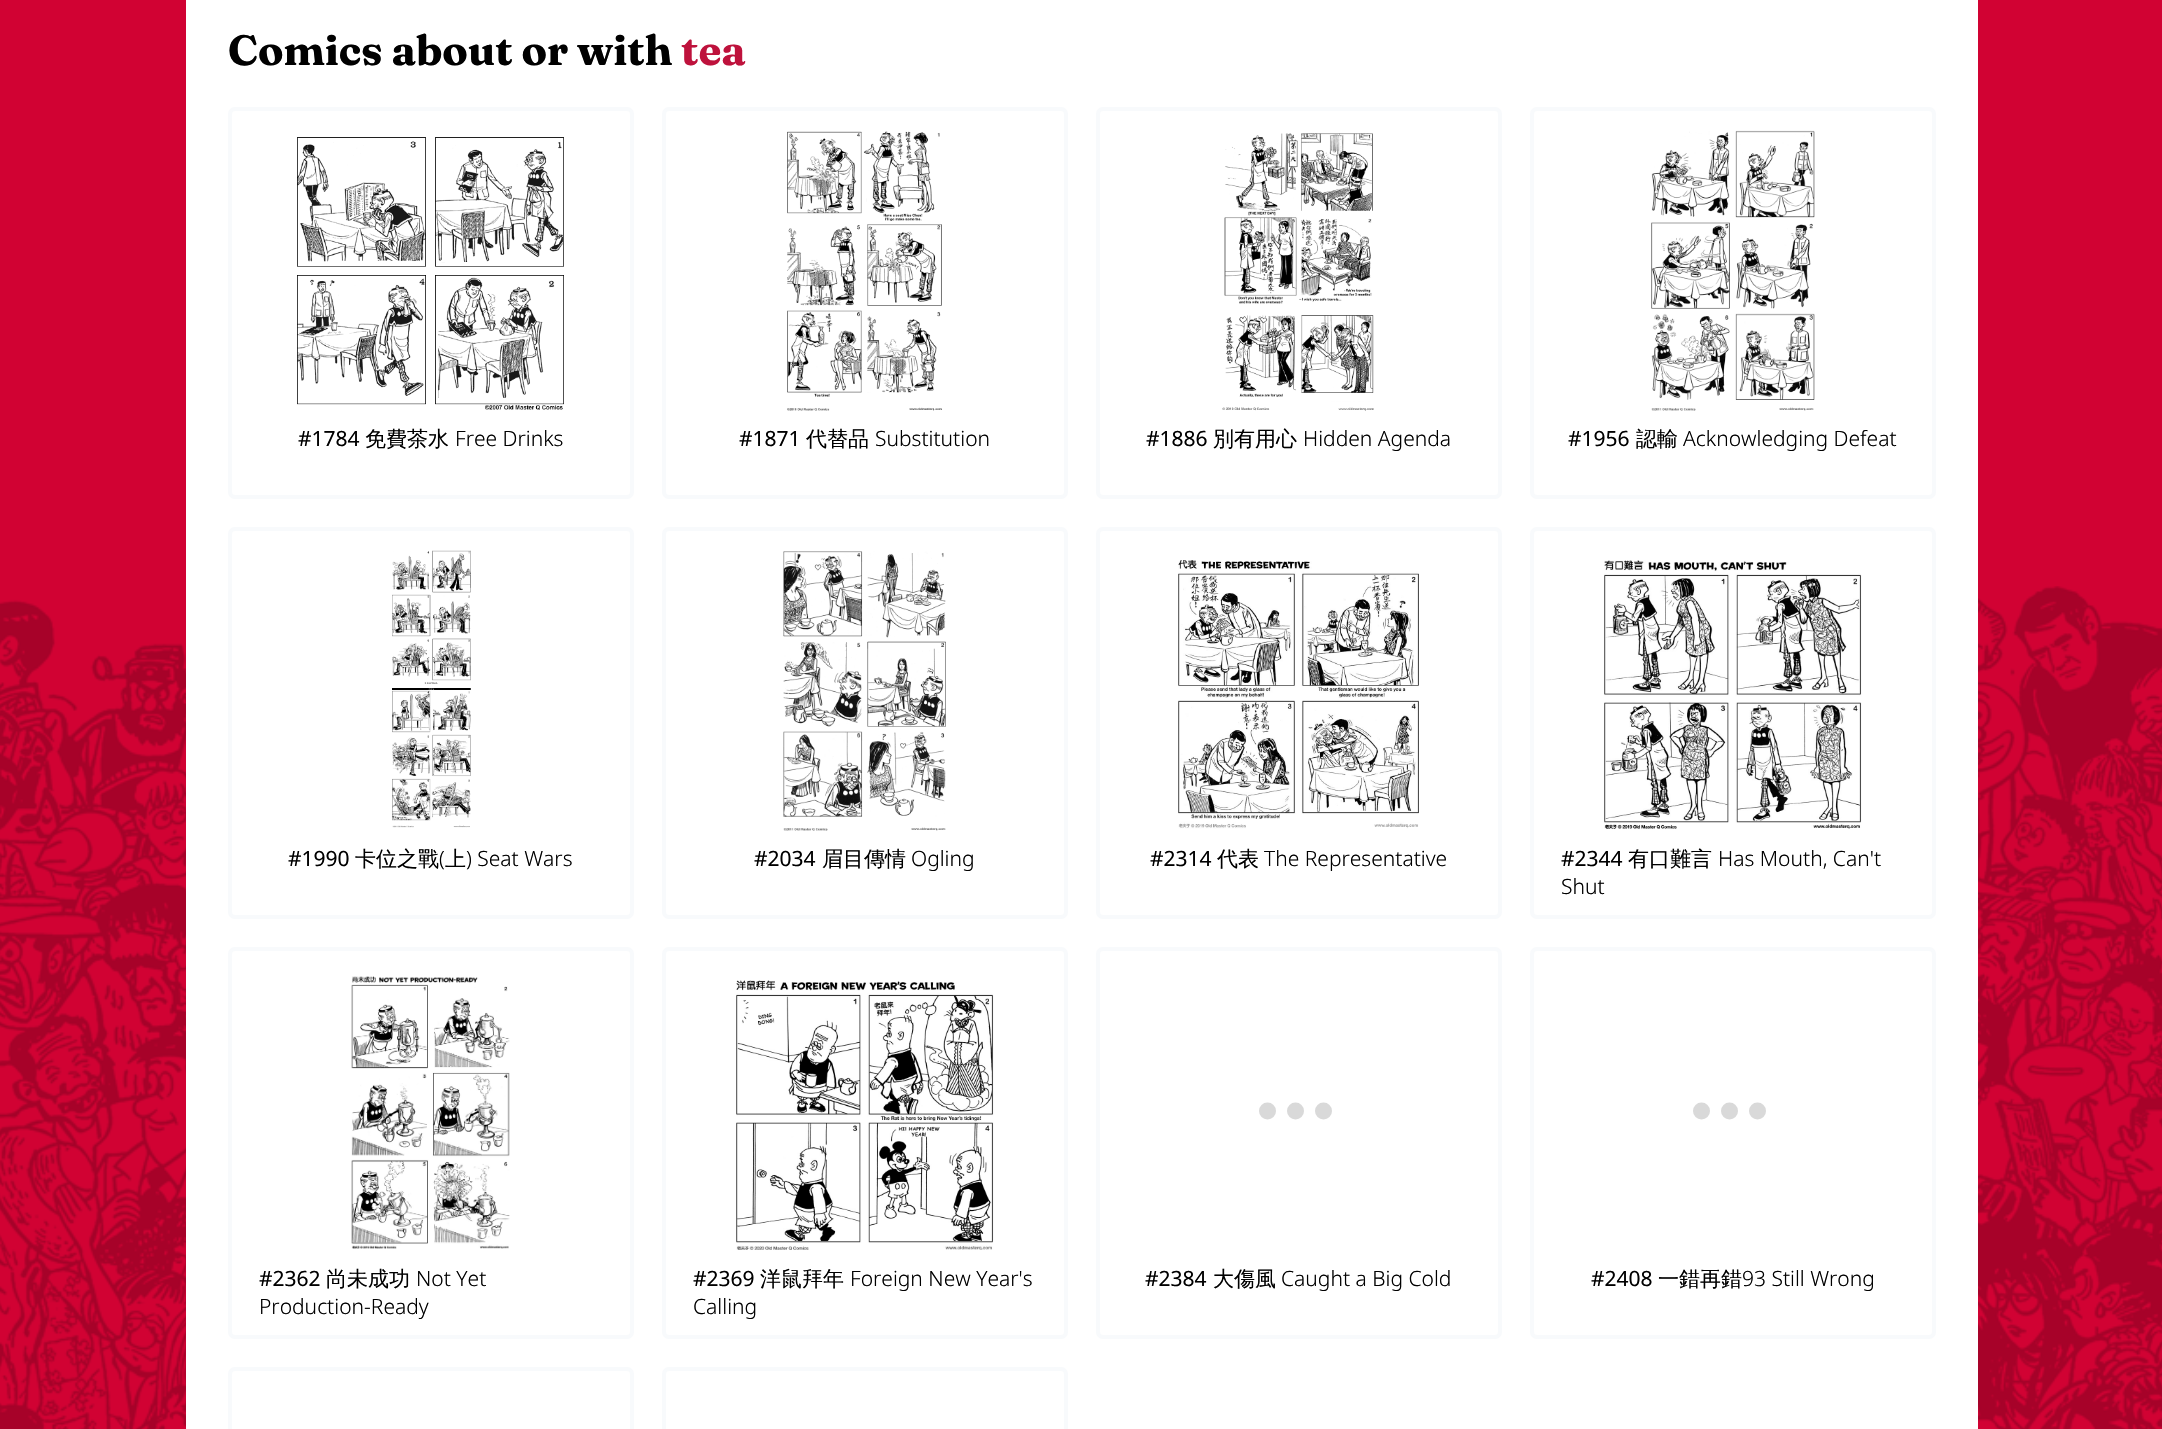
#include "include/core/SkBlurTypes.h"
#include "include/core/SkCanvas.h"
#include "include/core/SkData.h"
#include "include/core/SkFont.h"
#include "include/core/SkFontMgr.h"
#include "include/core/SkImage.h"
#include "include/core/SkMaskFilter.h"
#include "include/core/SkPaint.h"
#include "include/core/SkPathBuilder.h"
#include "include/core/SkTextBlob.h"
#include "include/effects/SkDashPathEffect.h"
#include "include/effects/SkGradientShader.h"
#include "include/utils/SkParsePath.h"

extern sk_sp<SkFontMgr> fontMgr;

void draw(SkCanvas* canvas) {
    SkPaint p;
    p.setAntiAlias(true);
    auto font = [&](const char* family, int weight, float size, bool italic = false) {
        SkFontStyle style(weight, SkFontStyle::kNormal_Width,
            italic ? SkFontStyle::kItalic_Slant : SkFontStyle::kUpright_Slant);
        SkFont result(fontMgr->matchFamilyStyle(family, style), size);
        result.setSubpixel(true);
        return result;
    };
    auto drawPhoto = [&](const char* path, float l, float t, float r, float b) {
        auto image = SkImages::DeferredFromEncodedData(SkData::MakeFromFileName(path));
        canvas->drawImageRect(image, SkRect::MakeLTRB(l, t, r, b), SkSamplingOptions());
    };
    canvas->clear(0xFFD10233);
    drawPhoto("media/1.png", 0, 586, 2162, 1429);
    p.setColor(0xFFFFFFFF);
    canvas->drawRect(SkRect::MakeLTRB(186, 0, 1978, 1429), p);
    auto font1 = font("Fraunces", 700, 42);
    p.setColor(0xFF000000);
    canvas->drawString("Comics about or with", 228, 65, font1, p);
    p.setColor(0xFFBE123C);
    canvas->drawString("tea", 681, 65, font1, p);
    p.setStyle(SkPaint::kStroke_Style);
    p.setStrokeWidth(4);
    p.setColor(0xFFF8FAFC);
    canvas->drawRoundRect(SkRect::MakeLTRB(230, 109, 632, 497), 5, 5, p);
    drawPhoto("media/2.png", 297, 137, 564, 410);
    auto font2 = font("Noto Sans", 400, 21);
    p.setStyle(SkPaint::kFill_Style);
    p.setColor(0xFF000000);
    canvas->drawString("#1784", 298, 446, font2, p);
    auto font3 = font("WenQuanYi Zen Hei", 500, 21);
    canvas->drawString("免費茶水", 365, 446, font3, p);
    auto font4 = font("Noto Sans", 300, 21);
    canvas->drawString("Free Drinks", 455, 446, font4, p);
    p.setStyle(SkPaint::kStroke_Style);
    p.setColor(0xFFF8FAFC);
    canvas->drawRoundRect(SkRect::MakeLTRB(664, 109, 1066, 497), 5, 5, p);
    drawPhoto("media/3.png", 787, 131, 942, 411);
    p.setStyle(SkPaint::kFill_Style);
    p.setColor(0xFF000000);
    canvas->drawString("#1871", 739, 446, font2, p);
    canvas->drawString("代替品", 806, 446, font3, p);
    canvas->drawString("Substitution", 875, 446, font4, p);
    p.setStyle(SkPaint::kStroke_Style);
    p.setColor(0xFFF8FAFC);
    canvas->drawRoundRect(SkRect::MakeLTRB(1098, 109, 1500, 497), 5, 5, p);
    drawPhoto("media/4.png", 1222, 133, 1374, 411);
    p.setStyle(SkPaint::kFill_Style);
    p.setColor(0xFF000000);
    canvas->drawString("#1886", 1146, 446, font2, p);
    canvas->drawString("別有用心", 1213, 446, font3, p);
    canvas->drawString("Hidden Agenda", 1303, 446, font4, p);
    p.setStyle(SkPaint::kStroke_Style);
    p.setColor(0xFFF8FAFC);
    canvas->drawRoundRect(SkRect::MakeLTRB(1532, 109, 1934, 497), 5, 5, p);
    drawPhoto("media/5.png", 1651, 130, 1815, 411);
    p.setStyle(SkPaint::kFill_Style);
    p.setColor(0xFF000000);
    canvas->drawString("#1956", 1568, 446, font2, p);
    canvas->drawString("認輸", 1636, 446, font3, p);
    canvas->drawString("Acknowledging Defeat", 1683, 446, font4, p);
    p.setStyle(SkPaint::kStroke_Style);
    p.setColor(0xFFF8FAFC);
    canvas->drawRoundRect(SkRect::MakeLTRB(230, 529, 632, 917), 5, 5, p);
    drawPhoto("media/6.png", 392, 550, 471, 828);
    p.setStyle(SkPaint::kFill_Style);
    p.setColor(0xFF000000);
    canvas->drawString("#1990", 288, 866, font2, p);
    canvas->drawString("卡位之戰", 355, 866, font3, p);
    canvas->drawString("(", 439, 866, font4, p);
    canvas->drawString("上", 445, 866, font3, p);
    canvas->drawString(") Seat Wars", 466, 866, font4, p);
    p.setStyle(SkPaint::kStroke_Style);
    p.setColor(0xFFF8FAFC);
    canvas->drawRoundRect(SkRect::MakeLTRB(664, 529, 1066, 917), 5, 5, p);
    drawPhoto("media/7.png", 783, 551, 946, 831);
    p.setStyle(SkPaint::kFill_Style);
    p.setColor(0xFF000000);
    canvas->drawString("#2034", 754, 866, font2, p);
    canvas->drawString("眉目傳情", 822, 866, font3, p);
    canvas->drawString("Ogling", 911, 866, font4, p);
    p.setStyle(SkPaint::kStroke_Style);
    p.setColor(0xFFF8FAFC);
    canvas->drawRoundRect(SkRect::MakeLTRB(1098, 529, 1500, 917), 5, 5, p);
    drawPhoto("media/8.png", 1178, 560, 1419, 829);
    p.setStyle(SkPaint::kFill_Style);
    p.setColor(0xFF000000);
    canvas->drawString("#2314", 1150, 866, font2, p);
    canvas->drawString("代表", 1217, 866, font3, p);
    canvas->drawString("The Representative", 1264, 866, font4, p);
    p.setStyle(SkPaint::kStroke_Style);
    p.setColor(0xFFF8FAFC);
    canvas->drawRoundRect(SkRect::MakeLTRB(1532, 529, 1934, 917), 5, 5, p);
    drawPhoto("media/9.png", 1604, 560, 1862, 829);
    p.setStyle(SkPaint::kFill_Style);
    p.setColor(0xFF000000);
    canvas->drawString("#2344", 1561, 866, font2, p);
    canvas->drawString("有口難言", 1628, 866, font3, p);
    canvas->drawString("Has Mouth, Can't", 1718, 866, font4, p);
    canvas->drawString("Shut", 1561, 894, font4, p);
    p.setStyle(SkPaint::kStroke_Style);
    p.setColor(0xFFF8FAFC);
    canvas->drawRoundRect(SkRect::MakeLTRB(230, 949, 632, 1337), 5, 5, p);
    drawPhoto("media/10.png", 351, 976, 510, 1249);
    p.setStyle(SkPaint::kFill_Style);
    p.setColor(0xFF000000);
    canvas->drawString("#2362", 259, 1286, font2, p);
    canvas->drawString("尚未成功", 326, 1286, font3, p);
    canvas->drawString("Not Yet", 416, 1286, font4, p);
    canvas->drawString("Production-Ready", 259, 1314, font4, p);
    p.setStyle(SkPaint::kStroke_Style);
    p.setColor(0xFFF8FAFC);
    canvas->drawRoundRect(SkRect::MakeLTRB(664, 949, 1066, 1337), 5, 5, p);
    drawPhoto("media/11.png", 736, 980, 994, 1250);
    p.setStyle(SkPaint::kFill_Style);
    p.setColor(0xFF000000);
    canvas->drawString("#2369", 693, 1286, font2, p);
    canvas->drawString("洋鼠拜年", 760, 1286, font3, p);
    canvas->drawString("Foreign New Year's", 850, 1286, font4, p);
    canvas->drawString("Calling", 693, 1314, font4, p);
    p.setStyle(SkPaint::kStroke_Style);
    p.setColor(0xFFF8FAFC);
    canvas->drawRoundRect(SkRect::MakeLTRB(1098, 949, 1500, 1337), 5, 5, p);
    p.setStyle(SkPaint::kFill_Style);
    p.setColor(0xFFD9D9D9);
    canvas->drawCircle(1267.5f, 1111, 8.5f, p);
    canvas->drawCircle(1295.5f, 1111, 8.5f, p);
    canvas->drawCircle(1323.5f, 1111, 8.5f, p);
    p.setColor(0xFF000000);
    canvas->drawString("#2384", 1145, 1286, font2, p);
    canvas->drawString("大傷風", 1213, 1286, font3, p);
    canvas->drawString("Caught a Big Cold", 1281, 1286, font4, p);
    p.setStyle(SkPaint::kStroke_Style);
    p.setColor(0xFFF8FAFC);
    canvas->drawRoundRect(SkRect::MakeLTRB(1532, 949, 1934, 1337), 5, 5, p);
    p.setStyle(SkPaint::kFill_Style);
    p.setColor(0xFFD9D9D9);
    canvas->drawCircle(1701.5f, 1111, 8.5f, p);
    canvas->drawCircle(1729.5f, 1111, 8.5f, p);
    canvas->drawCircle(1757.5f, 1111, 8.5f, p);
    p.setColor(0xFF000000);
    canvas->drawString("#2408", 1591, 1286, font2, p);
    canvas->drawString("一錯再錯", 1658, 1286, font3, p);
    canvas->drawString("93 Still Wrong", 1742, 1286, font4, p);
    p.setStyle(SkPaint::kStroke_Style);
    p.setColor(0xFFF8FAFC);
    canvas->drawRoundRect(SkRect::MakeLTRB(230, 1369, 632, 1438), 5, 5, p);
    canvas->drawRoundRect(SkRect::MakeLTRB(664, 1369, 1066, 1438), 5, 5, p);
}
